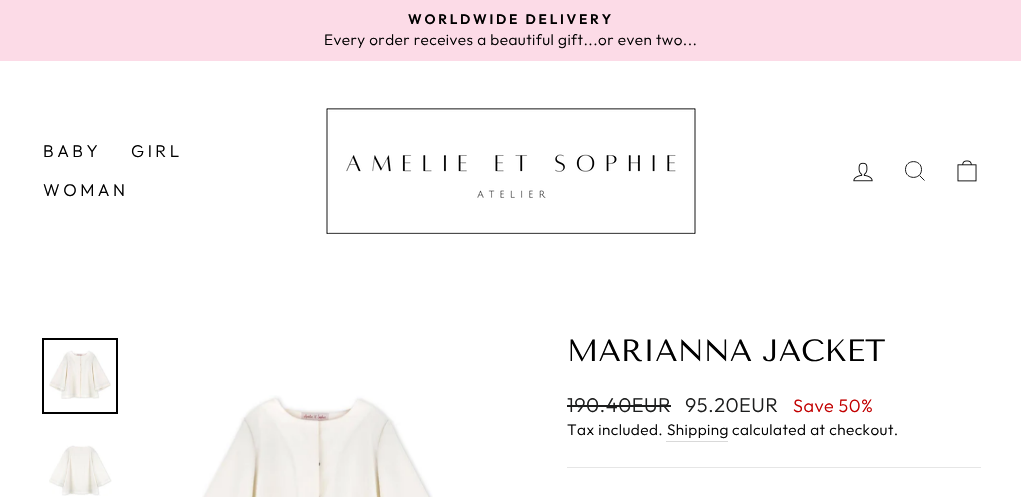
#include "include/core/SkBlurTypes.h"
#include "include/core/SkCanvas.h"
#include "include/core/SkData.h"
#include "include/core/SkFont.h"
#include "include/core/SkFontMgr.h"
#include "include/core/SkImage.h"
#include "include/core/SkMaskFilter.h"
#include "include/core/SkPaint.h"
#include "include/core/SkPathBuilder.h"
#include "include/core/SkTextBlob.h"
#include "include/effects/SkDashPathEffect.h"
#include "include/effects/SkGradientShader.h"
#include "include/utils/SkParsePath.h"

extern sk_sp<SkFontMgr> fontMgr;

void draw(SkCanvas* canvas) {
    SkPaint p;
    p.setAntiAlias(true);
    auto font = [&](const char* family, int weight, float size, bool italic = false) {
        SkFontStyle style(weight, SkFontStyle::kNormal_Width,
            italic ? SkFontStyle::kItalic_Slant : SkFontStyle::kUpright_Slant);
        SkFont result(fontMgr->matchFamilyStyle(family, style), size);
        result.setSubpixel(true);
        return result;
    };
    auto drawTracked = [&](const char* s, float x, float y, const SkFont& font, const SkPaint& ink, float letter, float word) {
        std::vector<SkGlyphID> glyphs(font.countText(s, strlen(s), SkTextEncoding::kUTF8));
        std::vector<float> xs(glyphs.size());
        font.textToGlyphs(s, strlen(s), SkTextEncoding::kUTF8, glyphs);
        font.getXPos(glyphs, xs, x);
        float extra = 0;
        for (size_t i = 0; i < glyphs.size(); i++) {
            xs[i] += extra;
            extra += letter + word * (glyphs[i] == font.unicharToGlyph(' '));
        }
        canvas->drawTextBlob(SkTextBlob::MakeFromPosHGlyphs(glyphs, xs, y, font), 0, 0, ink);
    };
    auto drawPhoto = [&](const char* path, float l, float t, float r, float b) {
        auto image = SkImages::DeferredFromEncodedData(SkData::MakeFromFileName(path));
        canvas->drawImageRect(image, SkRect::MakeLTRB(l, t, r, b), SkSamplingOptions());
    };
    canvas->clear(0xFFFFFFFF);
    p.setColor(0xFFFCDBE7);
    canvas->drawRect(SkRect::MakeLTRB(0, 0, 1021, 61), p);
    auto font1 = font("Outfit", 600, 13.75f);
    p.setColor(0xFF000000);
    drawTracked("WORLDWIDE DELIVERY", 408, 24, font1, p, 2.75f, 0);
    auto font2 = font("Outfit", 300, 15.3f);
    drawTracked("Every order receives a beautiful gift...or even two...", 324, 45, font2, p, 0.45f, 0);
    auto font3 = font("Outfit", 300, 17);
    {
        const struct { const char* s; float x, y; } items[] = {
            {"BABY", 43, 157},
            {"GIRL", 131, 157},
            {"WOMAN", 43, 196},
        };
        for (auto [s, x, y] : items) {
            drawTracked(s, x, y, font3, p, 3.5f, 0);
        }
    }
    drawPhoto("media/1.png", 326, 108, 696, 234);
    drawPhoto("media/2.png", 853, 162, 873, 182);
    p.setStyle(SkPaint::kStroke_Style);
    p.setStrokeWidth(0.9f);
    canvas->drawPath(SkPathBuilder().moveTo(921.5f, 169.5f).cubicTo(921.5f, 180, 905.5f, 180, 905.5f, 169.5f).cubicTo(905.5f, 159, 921.5f, 159, 921.5f, 169.5f).close().moveTo(924.5f, 180.5f).lineTo(919.5f, 175.5f).detach(), p);
    drawPhoto("media/3.png", 957, 160, 977, 182);
    drawPhoto("media/4.png", 49, 350, 111, 399);
    p.setStrokeWidth(2);
    canvas->drawRect(SkRect::MakeLTRB(43, 339, 117, 413), p);
    drawPhoto("media/5.png", 49, 445, 112, 496);
    drawPhoto("media/6.png", 202, 395, 433, 497);
    auto font4 = font("Tenor Sans", 400, 30.6f);
    p.setStyle(SkPaint::kFill_Style);
    canvas->drawString("MARIANNA JACKET", 567, 361, font4, p);
    auto font5 = font("Outfit", 300, 20);
    p.setColor(0xFF1C1D1D);
    drawTracked("190.40EUR", 567, 412, font5, p, 0.45f, 0);
    canvas->drawRect(SkRect::MakeLTRB(567, 405, 671, 407), p);
    drawTracked("95.20EUR", 685, 412, font5, p, 0.45f, 0);
    auto font6 = font("Outfit", 300, 18);
    p.setColor(0xFFC20000);
    drawTracked("Save 50%", 793, 412, font6, p, 0.45f, 0);
    p.setColor(0xFF000000);
    drawTracked("Tax included. Shipping", 567, 435, font2, p, 0.45f, 0);
    drawTracked("calculated at checkout.", 732, 435, font2, p, 0.45f, 0);
    p.setColor(0xFFD9D9D9);
    canvas->drawRect(SkRect::MakeLTRB(666, 441, 728, 442), p);
    p.setColor(0xFFE6E6E6);
    canvas->drawRect(SkRect::MakeLTRB(567, 467, 981, 468), p);
}
